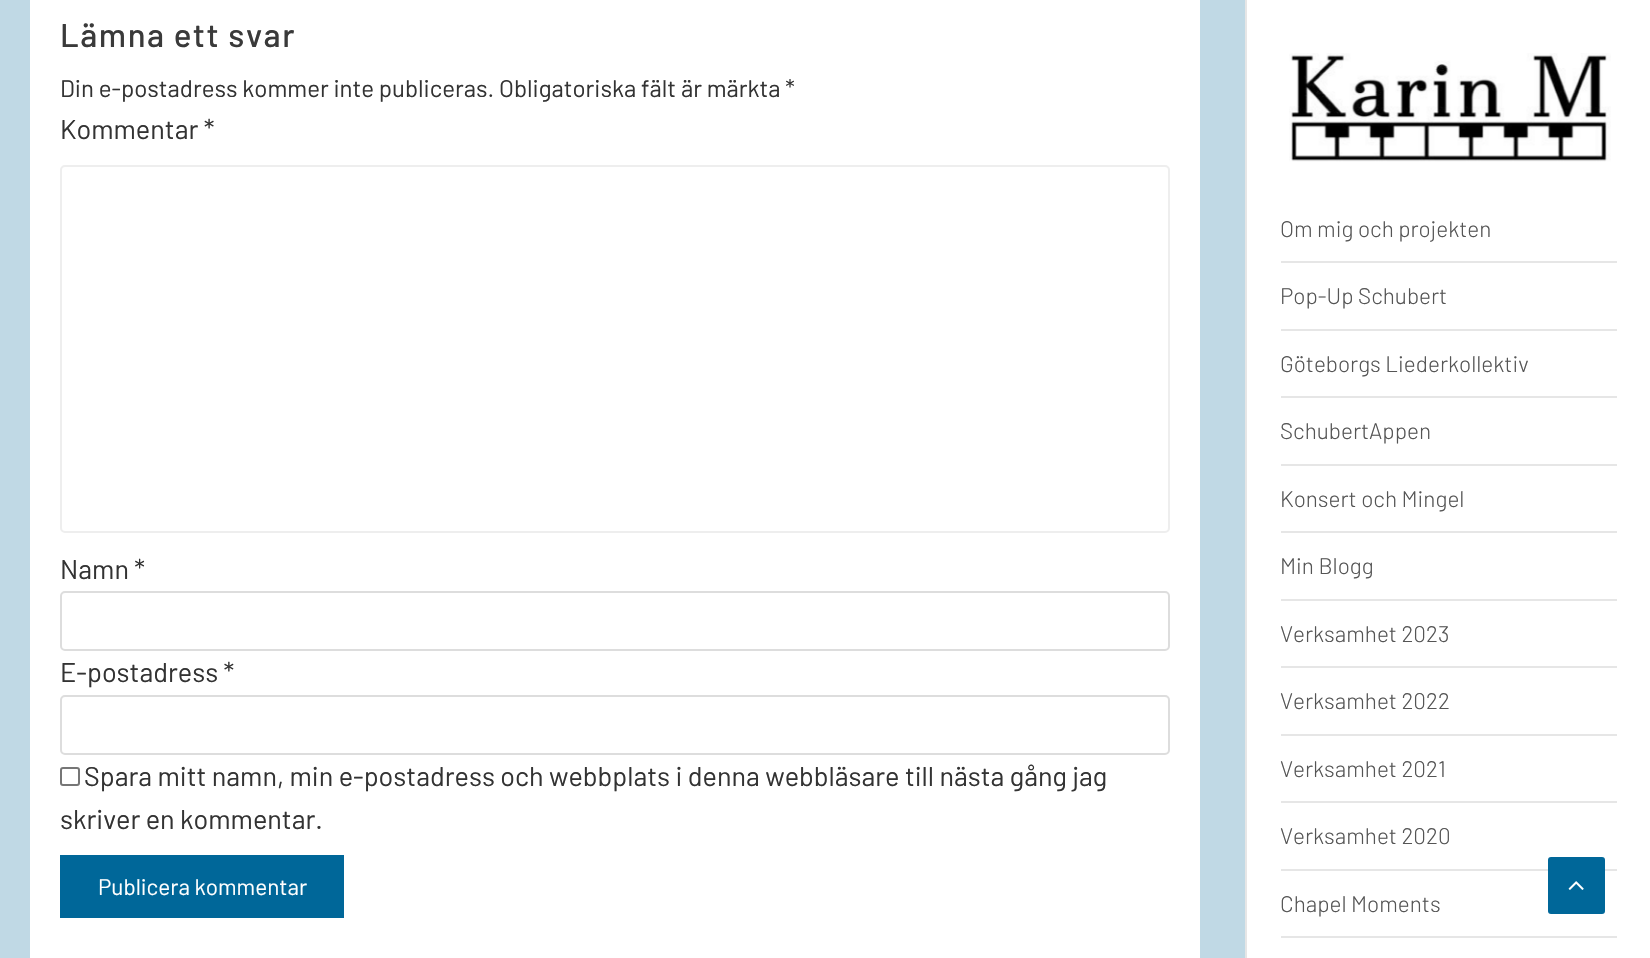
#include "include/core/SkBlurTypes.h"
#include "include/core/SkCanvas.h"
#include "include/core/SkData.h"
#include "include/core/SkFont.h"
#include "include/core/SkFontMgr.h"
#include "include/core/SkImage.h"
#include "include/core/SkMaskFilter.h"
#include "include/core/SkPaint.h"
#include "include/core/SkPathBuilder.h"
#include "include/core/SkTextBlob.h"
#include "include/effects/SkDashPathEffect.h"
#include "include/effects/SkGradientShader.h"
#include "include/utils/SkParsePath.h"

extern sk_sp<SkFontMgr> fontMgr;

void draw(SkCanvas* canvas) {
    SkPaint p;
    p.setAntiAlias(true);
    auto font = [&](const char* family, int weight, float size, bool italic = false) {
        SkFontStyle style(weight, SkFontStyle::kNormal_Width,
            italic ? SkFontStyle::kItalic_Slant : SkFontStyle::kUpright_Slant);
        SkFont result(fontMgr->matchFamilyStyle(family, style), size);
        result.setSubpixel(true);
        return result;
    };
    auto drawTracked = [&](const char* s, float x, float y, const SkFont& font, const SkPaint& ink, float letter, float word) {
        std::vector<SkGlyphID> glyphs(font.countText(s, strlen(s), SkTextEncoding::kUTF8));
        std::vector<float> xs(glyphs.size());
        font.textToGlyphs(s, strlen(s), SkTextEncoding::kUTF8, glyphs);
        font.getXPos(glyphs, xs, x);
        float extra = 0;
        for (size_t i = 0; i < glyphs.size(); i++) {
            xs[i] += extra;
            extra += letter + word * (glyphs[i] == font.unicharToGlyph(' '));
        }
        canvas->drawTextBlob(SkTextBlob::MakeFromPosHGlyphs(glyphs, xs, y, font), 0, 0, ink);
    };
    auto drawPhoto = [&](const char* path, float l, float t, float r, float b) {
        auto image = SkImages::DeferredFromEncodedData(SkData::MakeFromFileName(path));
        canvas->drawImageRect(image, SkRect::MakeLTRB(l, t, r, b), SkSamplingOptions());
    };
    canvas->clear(0xFFC0D9E5);
    p.setColor(0xFFFFFFFF);
    canvas->drawRect(SkRect::MakeLTRB(30, 0, 1200, 958), p);
    auto font1 = font("Barlow", 500, 33);
    p.setColor(0xFF3A3A3A);
    drawTracked("Lämna ett svar", 60, 47, font1, p, 1.5f, 0);
    auto font2 = font("Barlow", 400, 24);
    p.setColor(0xFF333333);
    canvas->drawString("Din e-postadress kommer inte publiceras. Obligatoriska fält är märkta *", 60, 97, font2, p);
    auto font3 = font("Barlow", 400, 27);
    canvas->drawString("Kommentar *", 60, 139, font3, p);
    p.setStyle(SkPaint::kStroke_Style);
    p.setStrokeWidth(2);
    p.setColor(0xFFEEEEEE);
    canvas->drawRoundRect(SkRect::MakeLTRB(61, 166, 1169, 532), 4, 4, p);
    p.setStyle(SkPaint::kFill_Style);
    p.setColor(0xFF333333);
    canvas->drawString("Namn *", 60, 579, font3, p);
    p.setStyle(SkPaint::kStroke_Style);
    p.setColor(0xFFDDDDDD);
    canvas->drawRoundRect(SkRect::MakeLTRB(61, 592, 1169, 650), 4, 4, p);
    p.setStyle(SkPaint::kFill_Style);
    p.setColor(0xFF333333);
    canvas->drawString("E-postadress *", 60, 682, font3, p);
    p.setStyle(SkPaint::kStroke_Style);
    p.setColor(0xFFDDDDDD);
    canvas->drawRoundRect(SkRect::MakeLTRB(61, 696, 1169, 754), 4, 4, p);
    p.setColor(0xFF767676);
    canvas->drawRoundRect(SkRect::MakeLTRB(61, 768, 79, 785), 2, 2, p);
    p.setStyle(SkPaint::kFill_Style);
    p.setColor(0xFF333333);
    canvas->drawString("Spara mitt namn, min e-postadress och webbplats i denna webbläsare till nästa gång jag", 84, 786, font3, p);
    canvas->drawString("skriver en kommentar.", 60, 829, font3, p);
    p.setColor(0xFF006799);
    canvas->drawRect(SkRect::MakeLTRB(60, 855, 344, 918), p);
    auto font4 = font("Barlow", 400, 22.5f);
    p.setColor(0xFFFFFFFF);
    canvas->drawString("Publicera kommentar", 98, 895, font4, p);
    canvas->drawRect(SkRect::MakeLTRB(1247, 0, 1650, 958), p);
    p.setColor(0xFFE6E6E6);
    canvas->drawRect(SkRect::MakeLTRB(1245, 0, 1247, 958), p);
    drawPhoto("media/1.png", 1289, 53, 1611, 162);
    canvas->drawRect(SkRect::MakeLTRB(1281, 261, 1617, 263), p);
    auto font5 = font("Barlow", 300, 22.5f);
    p.setColor(0xFF555555);
    canvas->drawString("Om mig och projekten", 1280, 237, font5, p);
    p.setColor(0xFFE6E6E6);
    canvas->drawRect(SkRect::MakeLTRB(1281, 329, 1617, 331), p);
    p.setColor(0xFF555555);
    canvas->drawString("Pop-Up Schubert", 1280, 304, font5, p);
    p.setColor(0xFFE6E6E6);
    canvas->drawRect(SkRect::MakeLTRB(1281, 396, 1617, 398), p);
    p.setColor(0xFF555555);
    canvas->drawString("Göteborgs Liederkollektiv", 1280, 372, font5, p);
    p.setColor(0xFFE6E6E6);
    canvas->drawRect(SkRect::MakeLTRB(1281, 464, 1617, 466), p);
    p.setColor(0xFF555555);
    canvas->drawString("SchubertAppen", 1280, 439, font5, p);
    p.setColor(0xFFE6E6E6);
    canvas->drawRect(SkRect::MakeLTRB(1281, 531, 1617, 533), p);
    p.setColor(0xFF555555);
    canvas->drawString("Konsert och Mingel", 1280, 507, font5, p);
    p.setColor(0xFFE6E6E6);
    canvas->drawRect(SkRect::MakeLTRB(1281, 599, 1617, 601), p);
    p.setColor(0xFF555555);
    canvas->drawString("Min Blogg", 1280, 574, font5, p);
    p.setColor(0xFFE6E6E6);
    canvas->drawRect(SkRect::MakeLTRB(1281, 666, 1617, 668), p);
    p.setColor(0xFF555555);
    canvas->drawString("Verksamhet 2023", 1280, 642, font5, p);
    p.setColor(0xFFE6E6E6);
    canvas->drawRect(SkRect::MakeLTRB(1281, 734, 1617, 736), p);
    p.setColor(0xFF555555);
    canvas->drawString("Verksamhet 2022", 1280, 709, font5, p);
    p.setColor(0xFFE6E6E6);
    canvas->drawRect(SkRect::MakeLTRB(1281, 801, 1617, 803), p);
    p.setColor(0xFF555555);
    canvas->drawString("Verksamhet 2021", 1280, 777, font5, p);
    p.setColor(0xFFE6E6E6);
    canvas->drawRect(SkRect::MakeLTRB(1281, 869, 1617, 871), p);
    p.setColor(0xFF555555);
    canvas->drawString("Verksamhet 2020", 1280, 844, font5, p);
    p.setColor(0xFFE6E6E6);
    canvas->drawRect(SkRect::MakeLTRB(1281, 936, 1617, 938), p);
    p.setColor(0xFF555555);
    canvas->drawString("Chapel Moments", 1280, 912, font5, p);
    p.setColor(0xFF006799);
    canvas->drawRoundRect(SkRect::MakeLTRB(1548, 857, 1605, 914), 3, 3, p);
    drawPhoto("media/2.png", 1568, 881, 1584, 890);
}
